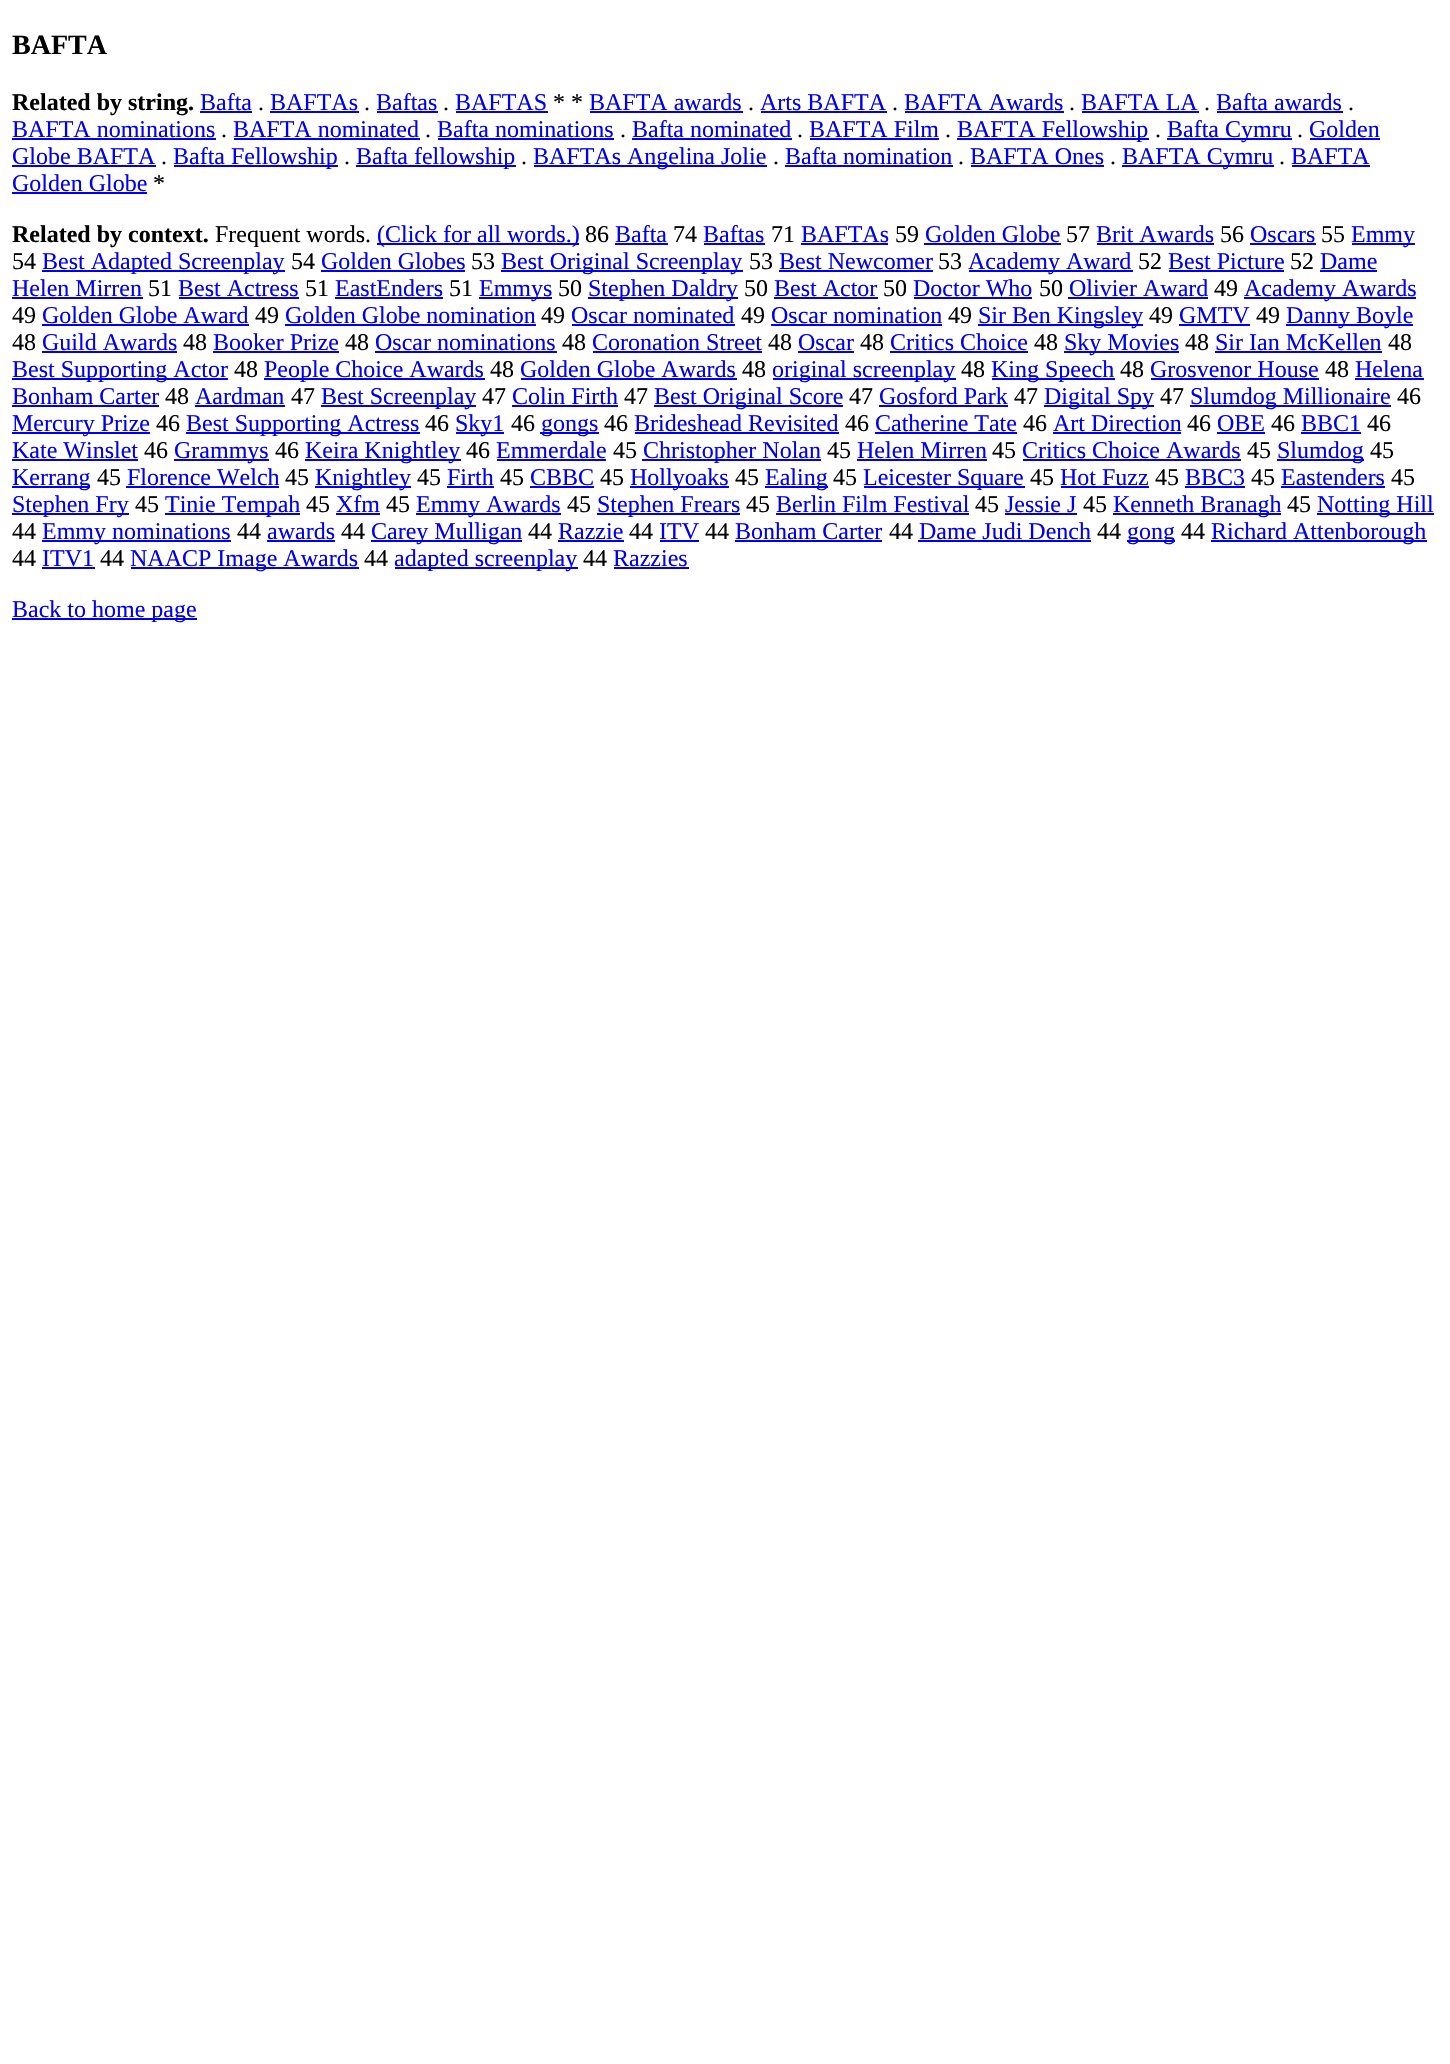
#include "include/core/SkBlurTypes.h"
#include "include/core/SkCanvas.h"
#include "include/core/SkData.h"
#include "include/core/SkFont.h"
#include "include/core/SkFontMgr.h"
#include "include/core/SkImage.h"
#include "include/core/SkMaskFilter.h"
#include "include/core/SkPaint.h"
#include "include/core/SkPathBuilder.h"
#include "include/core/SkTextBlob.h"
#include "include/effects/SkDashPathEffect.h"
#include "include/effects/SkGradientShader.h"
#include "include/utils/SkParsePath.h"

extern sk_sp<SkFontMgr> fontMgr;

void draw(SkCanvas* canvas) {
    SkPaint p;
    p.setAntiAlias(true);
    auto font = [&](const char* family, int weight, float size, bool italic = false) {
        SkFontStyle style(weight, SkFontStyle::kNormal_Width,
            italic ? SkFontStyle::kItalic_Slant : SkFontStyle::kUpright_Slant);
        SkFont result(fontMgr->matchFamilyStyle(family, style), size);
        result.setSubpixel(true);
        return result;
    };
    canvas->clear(0xFFFFFFFF);
    auto font1 = font("Liberation Serif", 700, 28);
    p.setColor(0xFF000000);
    canvas->drawString("BAFTA", 12, 54, font1, p);
    auto font2 = font("Liberation Serif", 700, 24);
    canvas->drawString("Related by string.", 12, 110, font2, p);
    auto font3 = font("Liberation Serif", 400, 24);
    p.setColor(0xFF0000EE);
    canvas->drawString("Bafta", 200, 110, font3, p);
    canvas->drawRect(SkRect::MakeLTRB(200, 111, 252, 113), p);
    p.setColor(0xFF000000);
    canvas->drawString(".", 258, 110, font3, p);
    p.setColor(0xFF0000EE);
    canvas->drawString("BAFTAs", 270, 110, font3, p);
    canvas->drawRect(SkRect::MakeLTRB(270, 111, 359, 113), p);
    p.setColor(0xFF000000);
    canvas->drawString(".", 364, 110, font3, p);
    p.setColor(0xFF0000EE);
    canvas->drawString("Baftas", 376, 110, font3, p);
    canvas->drawRect(SkRect::MakeLTRB(377, 111, 438, 113), p);
    p.setColor(0xFF000000);
    canvas->drawString(".", 443, 110, font3, p);
    p.setColor(0xFF0000EE);
    canvas->drawString("BAFTAS", 455, 110, font3, p);
    canvas->drawRect(SkRect::MakeLTRB(456, 111, 548, 113), p);
    p.setColor(0xFF000000);
    canvas->drawString("* *", 553, 110, font3, p);
    p.setColor(0xFF0000EE);
    canvas->drawString("BAFTA awards", 589, 110, font3, p);
    canvas->drawRect(SkRect::MakeLTRB(590, 111, 743, 113), p);
    p.setColor(0xFF000000);
    canvas->drawString(".", 748, 110, font3, p);
    p.setColor(0xFF0000EE);
    canvas->drawString("Arts BAFTA", 760, 110, font3, p);
    canvas->drawRect(SkRect::MakeLTRB(761, 111, 887, 113), p);
    p.setColor(0xFF000000);
    canvas->drawString(".", 892, 110, font3, p);
    p.setColor(0xFF0000EE);
    canvas->drawString("BAFTA Awards", 904, 110, font3, p);
    canvas->drawRect(SkRect::MakeLTRB(905, 111, 1064, 113), p);
    p.setColor(0xFF000000);
    canvas->drawString(".", 1069, 110, font3, p);
    p.setColor(0xFF0000EE);
    canvas->drawString("BAFTA LA", 1081, 110, font3, p);
    canvas->drawRect(SkRect::MakeLTRB(1082, 111, 1199, 113), p);
    p.setColor(0xFF000000);
    canvas->drawString(".", 1204, 110, font3, p);
    p.setColor(0xFF0000EE);
    canvas->drawString("Bafta awards", 1216, 110, font3, p);
    canvas->drawRect(SkRect::MakeLTRB(1217, 111, 1343, 113), p);
    p.setColor(0xFF000000);
    canvas->drawString(".", 1348, 110, font3, p);
    p.setColor(0xFF0000EE);
    canvas->drawString("BAFTA nominations", 12, 137, font3, p);
    canvas->drawRect(SkRect::MakeLTRB(12, 138, 216, 140), p);
    p.setColor(0xFF000000);
    canvas->drawString(".", 221, 137, font3, p);
    p.setColor(0xFF0000EE);
    canvas->drawString("BAFTA nominated", 233, 137, font3, p);
    canvas->drawRect(SkRect::MakeLTRB(234, 138, 420, 140), p);
    p.setColor(0xFF000000);
    canvas->drawString(".", 425, 137, font3, p);
    p.setColor(0xFF0000EE);
    canvas->drawString("Bafta nominations", 437, 137, font3, p);
    canvas->drawRect(SkRect::MakeLTRB(438, 138, 614, 140), p);
    p.setColor(0xFF000000);
    canvas->drawString(".", 620, 137, font3, p);
    p.setColor(0xFF0000EE);
    canvas->drawString("Bafta nominated", 632, 137, font3, p);
    canvas->drawRect(SkRect::MakeLTRB(632, 138, 792, 140), p);
    p.setColor(0xFF000000);
    canvas->drawString(".", 797, 137, font3, p);
    p.setColor(0xFF0000EE);
    canvas->drawString("BAFTA Film", 809, 137, font3, p);
    canvas->drawRect(SkRect::MakeLTRB(810, 138, 939, 140), p);
    p.setColor(0xFF000000);
    canvas->drawString(".", 945, 137, font3, p);
    p.setColor(0xFF0000EE);
    canvas->drawRect(SkRect::MakeLTRB(957, 138, 1149, 140), p);
    canvas->drawString("BAFTA Fellowship", 957, 137, font3, p);
    p.setColor(0xFF000000);
    canvas->drawString(".", 1155, 137, font3, p);
    p.setColor(0xFF0000EE);
    canvas->drawRect(SkRect::MakeLTRB(1167, 138, 1292, 140), p);
    canvas->drawString("Bafta Cymru", 1167, 137, font3, p);
    p.setColor(0xFF000000);
    canvas->drawString(".", 1297, 137, font3, p);
    p.setColor(0xFF0000EE);
    canvas->drawString("Golden", 1309, 137, font3, p);
    canvas->drawRect(SkRect::MakeLTRB(1310, 138, 1380, 140), p);
    canvas->drawString("Globe BAFTA", 12, 164, font3, p);
    canvas->drawRect(SkRect::MakeLTRB(12, 165, 156, 167), p);
    p.setColor(0xFF000000);
    canvas->drawString(".", 161, 164, font3, p);
    p.setColor(0xFF0000EE);
    canvas->drawRect(SkRect::MakeLTRB(174, 165, 338, 167), p);
    canvas->drawString("Bafta Fellowship", 173, 164, font3, p);
    p.setColor(0xFF000000);
    canvas->drawString(".", 344, 164, font3, p);
    p.setColor(0xFF0000EE);
    canvas->drawRect(SkRect::MakeLTRB(356, 165, 516, 167), p);
    canvas->drawString("Bafta fellowship", 356, 164, font3, p);
    p.setColor(0xFF000000);
    canvas->drawString(".", 521, 164, font3, p);
    p.setColor(0xFF0000EE);
    canvas->drawRect(SkRect::MakeLTRB(534, 165, 767, 167), p);
    canvas->drawString("BAFTAs Angelina Jolie", 533, 164, font3, p);
    p.setColor(0xFF000000);
    canvas->drawString(".", 773, 164, font3, p);
    p.setColor(0xFF0000EE);
    canvas->drawString("Bafta nomination", 785, 164, font3, p);
    canvas->drawRect(SkRect::MakeLTRB(785, 165, 953, 167), p);
    p.setColor(0xFF000000);
    canvas->drawString(".", 958, 164, font3, p);
    p.setColor(0xFF0000EE);
    canvas->drawString("BAFTA Ones", 970, 164, font3, p);
    canvas->drawRect(SkRect::MakeLTRB(971, 165, 1104, 167), p);
    p.setColor(0xFF000000);
    canvas->drawString(".", 1110, 164, font3, p);
    p.setColor(0xFF0000EE);
    canvas->drawRect(SkRect::MakeLTRB(1122, 165, 1274, 167), p);
    canvas->drawString("BAFTA Cymru", 1122, 164, font3, p);
    p.setColor(0xFF000000);
    canvas->drawString(".", 1279, 164, font3, p);
    p.setColor(0xFF0000EE);
    canvas->drawString("BAFTA", 1291, 164, font3, p);
    canvas->drawRect(SkRect::MakeLTRB(1292, 165, 1370, 167), p);
    canvas->drawString("Golden Globe", 12, 191, font3, p);
    canvas->drawRect(SkRect::MakeLTRB(12, 192, 147, 194), p);
    p.setColor(0xFF000000);
    canvas->drawString("*", 153, 191, font3, p);
    canvas->drawString("Related by context.", 12, 242, font2, p);
    canvas->drawString("Frequent words.", 215, 242, font3, p);
    p.setColor(0xFF0000EE);
    canvas->drawRect(SkRect::MakeLTRB(377, 243, 579, 245), p);
    canvas->drawString("(Click for all words.)", 377, 242, font3, p);
    p.setColor(0xFF000000);
    canvas->drawString("86", 585, 242, font3, p);
    p.setColor(0xFF0000EE);
    canvas->drawString("Bafta", 615, 242, font3, p);
    canvas->drawRect(SkRect::MakeLTRB(615, 243, 668, 245), p);
    p.setColor(0xFF000000);
    canvas->drawString("74", 673, 242, font3, p);
    p.setColor(0xFF0000EE);
    canvas->drawString("Baftas", 703, 242, font3, p);
    canvas->drawRect(SkRect::MakeLTRB(704, 243, 765, 245), p);
    p.setColor(0xFF000000);
    canvas->drawString("71", 771, 242, font3, p);
    p.setColor(0xFF0000EE);
    canvas->drawString("BAFTAs", 801, 242, font3, p);
    canvas->drawRect(SkRect::MakeLTRB(801, 243, 888, 245), p);
    p.setColor(0xFF000000);
    canvas->drawString("59", 895, 242, font3, p);
    p.setColor(0xFF0000EE);
    canvas->drawString("Golden Globe", 925, 242, font3, p);
    canvas->drawRect(SkRect::MakeLTRB(924, 243, 1061, 245), p);
    p.setColor(0xFF000000);
    canvas->drawString("57", 1066, 242, font3, p);
    p.setColor(0xFF0000EE);
    canvas->drawString("Brit Awards", 1096, 242, font3, p);
    canvas->drawRect(SkRect::MakeLTRB(1097, 243, 1214, 245), p);
    p.setColor(0xFF000000);
    canvas->drawString("56", 1220, 242, font3, p);
    p.setColor(0xFF0000EE);
    canvas->drawString("Oscars", 1250, 242, font3, p);
    canvas->drawRect(SkRect::MakeLTRB(1250, 243, 1316, 245), p);
    p.setColor(0xFF000000);
    canvas->drawString("55", 1321, 242, font3, p);
    p.setColor(0xFF0000EE);
    canvas->drawRect(SkRect::MakeLTRB(1352, 243, 1415, 245), p);
    canvas->drawString("Emmy", 1351, 242, font3, p);
    p.setColor(0xFF000000);
    canvas->drawString("54", 12, 269, font3, p);
    p.setColor(0xFF0000EE);
    canvas->drawRect(SkRect::MakeLTRB(42, 270, 285, 272), p);
    canvas->drawString("Best Adapted Screenplay", 42, 269, font3, p);
    p.setColor(0xFF000000);
    canvas->drawString("54", 291, 269, font3, p);
    p.setColor(0xFF0000EE);
    canvas->drawString("Golden Globes", 321, 269, font3, p);
    canvas->drawRect(SkRect::MakeLTRB(321, 270, 465, 272), p);
    p.setColor(0xFF000000);
    canvas->drawString("53", 471, 269, font3, p);
    p.setColor(0xFF0000EE);
    canvas->drawRect(SkRect::MakeLTRB(501, 270, 743, 272), p);
    canvas->drawString("Best Original Screenplay", 501, 269, font3, p);
    p.setColor(0xFF000000);
    canvas->drawString("53", 749, 269, font3, p);
    p.setColor(0xFF0000EE);
    canvas->drawString("Best Newcomer", 779, 269, font3, p);
    canvas->drawRect(SkRect::MakeLTRB(779, 270, 933, 272), p);
    p.setColor(0xFF000000);
    canvas->drawString("53", 938, 269, font3, p);
    p.setColor(0xFF0000EE);
    canvas->drawRect(SkRect::MakeLTRB(969, 270, 1133, 272), p);
    canvas->drawString("Academy Award", 968, 269, font3, p);
    p.setColor(0xFF000000);
    canvas->drawString("52", 1138, 269, font3, p);
    p.setColor(0xFF0000EE);
    canvas->drawString("Best Picture", 1168, 269, font3, p);
    canvas->drawRect(SkRect::MakeLTRB(1169, 270, 1284, 272), p);
    p.setColor(0xFF000000);
    canvas->drawString("52", 1290, 269, font3, p);
    p.setColor(0xFF0000EE);
    canvas->drawString("Dame", 1320, 269, font3, p);
    canvas->drawRect(SkRect::MakeLTRB(1320, 270, 1377, 272), p);
    canvas->drawString("Helen Mirren", 12, 296, font3, p);
    canvas->drawRect(SkRect::MakeLTRB(12, 297, 143, 299), p);
    p.setColor(0xFF000000);
    canvas->drawString("51", 148, 296, font3, p);
    p.setColor(0xFF0000EE);
    canvas->drawString("Best Actress", 178, 296, font3, p);
    canvas->drawRect(SkRect::MakeLTRB(179, 297, 299, 299), p);
    p.setColor(0xFF000000);
    canvas->drawString("51", 305, 296, font3, p);
    p.setColor(0xFF0000EE);
    canvas->drawString("EastEnders", 335, 296, font3, p);
    canvas->drawRect(SkRect::MakeLTRB(335, 297, 443, 299), p);
    p.setColor(0xFF000000);
    canvas->drawString("51", 449, 296, font3, p);
    p.setColor(0xFF0000EE);
    canvas->drawRect(SkRect::MakeLTRB(479, 297, 552, 299), p);
    canvas->drawString("Emmys", 479, 296, font3, p);
    p.setColor(0xFF000000);
    canvas->drawString("50", 558, 296, font3, p);
    p.setColor(0xFF0000EE);
    canvas->drawRect(SkRect::MakeLTRB(588, 297, 738, 299), p);
    canvas->drawString("Stephen Daldry", 588, 296, font3, p);
    p.setColor(0xFF000000);
    canvas->drawString("50", 744, 296, font3, p);
    p.setColor(0xFF0000EE);
    canvas->drawString("Best Actor", 774, 296, font3, p);
    canvas->drawRect(SkRect::MakeLTRB(774, 297, 878, 299), p);
    p.setColor(0xFF000000);
    canvas->drawString("50", 883, 296, font3, p);
    p.setColor(0xFF0000EE);
    canvas->drawString("Doctor Who", 913, 296, font3, p);
    canvas->drawRect(SkRect::MakeLTRB(914, 297, 1032, 299), p);
    p.setColor(0xFF000000);
    canvas->drawString("50", 1039, 296, font3, p);
    p.setColor(0xFF0000EE);
    canvas->drawString("Olivier Award", 1069, 296, font3, p);
    canvas->drawRect(SkRect::MakeLTRB(1068, 297, 1208, 299), p);
    p.setColor(0xFF000000);
    canvas->drawString("49", 1214, 296, font3, p);
    p.setColor(0xFF0000EE);
    canvas->drawRect(SkRect::MakeLTRB(1244, 297, 1416, 299), p);
    canvas->drawString("Academy Awards", 1244, 296, font3, p);
    p.setColor(0xFF000000);
    canvas->drawString("49", 12, 323, font3, p);
    p.setColor(0xFF0000EE);
    canvas->drawString("Golden Globe Award", 42, 323, font3, p);
    canvas->drawRect(SkRect::MakeLTRB(42, 324, 249, 326), p);
    p.setColor(0xFF000000);
    canvas->drawString("49", 255, 323, font3, p);
    p.setColor(0xFF0000EE);
    canvas->drawString("Golden Globe nomination", 285, 323, font3, p);
    canvas->drawRect(SkRect::MakeLTRB(285, 324, 536, 326), p);
    p.setColor(0xFF000000);
    canvas->drawString("49", 541, 323, font3, p);
    p.setColor(0xFF0000EE);
    canvas->drawString("Oscar nominated", 571, 323, font3, p);
    canvas->drawRect(SkRect::MakeLTRB(572, 324, 735, 326), p);
    p.setColor(0xFF000000);
    canvas->drawString("49", 741, 323, font3, p);
    p.setColor(0xFF0000EE);
    canvas->drawString("Oscar nomination", 771, 323, font3, p);
    canvas->drawRect(SkRect::MakeLTRB(771, 324, 942, 326), p);
    p.setColor(0xFF000000);
    canvas->drawString("49", 948, 323, font3, p);
    p.setColor(0xFF0000EE);
    canvas->drawRect(SkRect::MakeLTRB(978, 324, 1143, 326), p);
    canvas->drawString("Sir Ben Kingsley", 978, 323, font3, p);
    p.setColor(0xFF000000);
    canvas->drawString("49", 1149, 323, font3, p);
    p.setColor(0xFF0000EE);
    canvas->drawString("GMTV", 1179, 323, font3, p);
    canvas->drawRect(SkRect::MakeLTRB(1179, 324, 1250, 326), p);
    p.setColor(0xFF000000);
    canvas->drawString("49", 1256, 323, font3, p);
    p.setColor(0xFF0000EE);
    canvas->drawRect(SkRect::MakeLTRB(1286, 324, 1413, 326), p);
    canvas->drawString("Danny Boyle", 1286, 323, font3, p);
    p.setColor(0xFF000000);
    canvas->drawString("48", 12, 350, font3, p);
    p.setColor(0xFF0000EE);
    canvas->drawString("Guild Awards", 42, 350, font3, p);
    canvas->drawRect(SkRect::MakeLTRB(42, 351, 177, 353), p);
    p.setColor(0xFF000000);
    canvas->drawString("48", 183, 350, font3, p);
    p.setColor(0xFF0000EE);
    canvas->drawString("Booker Prize", 213, 350, font3, p);
    canvas->drawRect(SkRect::MakeLTRB(213, 351, 339, 353), p);
    p.setColor(0xFF000000);
    canvas->drawString("48", 345, 350, font3, p);
    p.setColor(0xFF0000EE);
    canvas->drawString("Oscar nominations", 375, 350, font3, p);
    canvas->drawRect(SkRect::MakeLTRB(375, 351, 557, 353), p);
    p.setColor(0xFF000000);
    canvas->drawString("48", 562, 350, font3, p);
    p.setColor(0xFF0000EE);
    canvas->drawString("Coronation Street", 592, 350, font3, p);
    canvas->drawRect(SkRect::MakeLTRB(593, 351, 762, 353), p);
    p.setColor(0xFF000000);
    canvas->drawString("48", 768, 350, font3, p);
    p.setColor(0xFF0000EE);
    canvas->drawString("Oscar", 798, 350, font3, p);
    canvas->drawRect(SkRect::MakeLTRB(798, 351, 854, 353), p);
    p.setColor(0xFF000000);
    canvas->drawString("48", 860, 350, font3, p);
    p.setColor(0xFF0000EE);
    canvas->drawString("Critics Choice", 890, 350, font3, p);
    canvas->drawRect(SkRect::MakeLTRB(890, 351, 1028, 353), p);
    p.setColor(0xFF000000);
    canvas->drawString("48", 1034, 350, font3, p);
    p.setColor(0xFF0000EE);
    canvas->drawRect(SkRect::MakeLTRB(1064, 351, 1179, 353), p);
    canvas->drawString("Sky Movies", 1064, 350, font3, p);
    p.setColor(0xFF000000);
    canvas->drawString("48", 1185, 350, font3, p);
    p.setColor(0xFF0000EE);
    canvas->drawString("Sir Ian McKellen", 1215, 350, font3, p);
    canvas->drawRect(SkRect::MakeLTRB(1215, 351, 1382, 353), p);
    p.setColor(0xFF000000);
    canvas->drawString("48", 1388, 350, font3, p);
    p.setColor(0xFF0000EE);
    canvas->drawRect(SkRect::MakeLTRB(12, 378, 228, 380), p);
    canvas->drawString("Best Supporting Actor", 12, 377, font3, p);
    p.setColor(0xFF000000);
    canvas->drawString("48", 234, 377, font3, p);
    p.setColor(0xFF0000EE);
    canvas->drawRect(SkRect::MakeLTRB(264, 378, 485, 380), p);
    canvas->drawString("People Choice Awards", 264, 377, font3, p);
    p.setColor(0xFF000000);
    canvas->drawString("48", 490, 377, font3, p);
    p.setColor(0xFF0000EE);
    canvas->drawString("Golden Globe Awards", 520, 377, font3, p);
    canvas->drawRect(SkRect::MakeLTRB(521, 378, 737, 380), p);
    p.setColor(0xFF000000);
    canvas->drawString("48", 742, 377, font3, p);
    p.setColor(0xFF0000EE);
    canvas->drawRect(SkRect::MakeLTRB(773, 378, 956, 380), p);
    canvas->drawString("original screenplay", 772, 377, font3, p);
    p.setColor(0xFF000000);
    canvas->drawString("48", 961, 377, font3, p);
    p.setColor(0xFF0000EE);
    canvas->drawRect(SkRect::MakeLTRB(992, 378, 1115, 380), p);
    canvas->drawString("King Speech", 991, 377, font3, p);
    p.setColor(0xFF000000);
    canvas->drawString("48", 1120, 377, font3, p);
    p.setColor(0xFF0000EE);
    canvas->drawString("Grosvenor House", 1150, 377, font3, p);
    canvas->drawRect(SkRect::MakeLTRB(1151, 378, 1319, 380), p);
    p.setColor(0xFF000000);
    canvas->drawString("48", 1325, 377, font3, p);
    p.setColor(0xFF0000EE);
    canvas->drawString("Helena", 1355, 377, font3, p);
    canvas->drawRect(SkRect::MakeLTRB(1355, 378, 1424, 380), p);
    canvas->drawString("Bonham Carter", 12, 404, font3, p);
    canvas->drawRect(SkRect::MakeLTRB(12, 405, 159, 407), p);
    p.setColor(0xFF000000);
    canvas->drawString("48", 165, 404, font3, p);
    p.setColor(0xFF0000EE);
    canvas->drawString("Aardman", 195, 404, font3, p);
    canvas->drawRect(SkRect::MakeLTRB(195, 405, 285, 407), p);
    p.setColor(0xFF000000);
    canvas->drawString("47", 291, 404, font3, p);
    p.setColor(0xFF0000EE);
    canvas->drawRect(SkRect::MakeLTRB(321, 405, 476, 407), p);
    canvas->drawString("Best Screenplay", 321, 404, font3, p);
    p.setColor(0xFF000000);
    canvas->drawString("47", 482, 404, font3, p);
    p.setColor(0xFF0000EE);
    canvas->drawString("Colin Firth", 512, 404, font3, p);
    canvas->drawRect(SkRect::MakeLTRB(512, 405, 618, 407), p);
    p.setColor(0xFF000000);
    canvas->drawString("47", 624, 404, font3, p);
    p.setColor(0xFF0000EE);
    canvas->drawRect(SkRect::MakeLTRB(654, 405, 843, 407), p);
    canvas->drawString("Best Original Score", 654, 404, font3, p);
    p.setColor(0xFF000000);
    canvas->drawString("47", 849, 404, font3, p);
    p.setColor(0xFF0000EE);
    canvas->drawString("Gosford Park", 879, 404, font3, p);
    canvas->drawRect(SkRect::MakeLTRB(879, 405, 1008, 407), p);
    p.setColor(0xFF000000);
    canvas->drawString("47", 1014, 404, font3, p);
    p.setColor(0xFF0000EE);
    canvas->drawRect(SkRect::MakeLTRB(1044, 405, 1154, 407), p);
    canvas->drawString("Digital Spy", 1044, 404, font3, p);
    p.setColor(0xFF000000);
    canvas->drawString("47", 1160, 404, font3, p);
    p.setColor(0xFF0000EE);
    canvas->drawRect(SkRect::MakeLTRB(1190, 405, 1391, 407), p);
    canvas->drawString("Slumdog Millionaire", 1190, 404, font3, p);
    p.setColor(0xFF000000);
    canvas->drawString("46", 1397, 404, font3, p);
    p.setColor(0xFF0000EE);
    canvas->drawRect(SkRect::MakeLTRB(12, 432, 150, 434), p);
    canvas->drawString("Mercury Prize", 12, 431, font3, p);
    p.setColor(0xFF000000);
    canvas->drawString("46", 156, 431, font3, p);
    p.setColor(0xFF0000EE);
    canvas->drawRect(SkRect::MakeLTRB(186, 432, 420, 434), p);
    canvas->drawString("Best Supporting Actress", 186, 431, font3, p);
    p.setColor(0xFF000000);
    canvas->drawString("46", 425, 431, font3, p);
    p.setColor(0xFF0000EE);
    canvas->drawRect(SkRect::MakeLTRB(456, 432, 504, 434), p);
    canvas->drawString("Sky1", 455, 431, font3, p);
    p.setColor(0xFF000000);
    canvas->drawString("46", 511, 431, font3, p);
    p.setColor(0xFF0000EE);
    canvas->drawRect(SkRect::MakeLTRB(540, 432, 599, 434), p);
    canvas->drawString("gongs", 541, 431, font3, p);
    p.setColor(0xFF000000);
    canvas->drawString("46", 604, 431, font3, p);
    p.setColor(0xFF0000EE);
    canvas->drawString("Brideshead Revisited", 634, 431, font3, p);
    canvas->drawRect(SkRect::MakeLTRB(635, 432, 839, 434), p);
    p.setColor(0xFF000000);
    canvas->drawString("46", 845, 431, font3, p);
    p.setColor(0xFF0000EE);
    canvas->drawString("Catherine Tate", 875, 431, font3, p);
    canvas->drawRect(SkRect::MakeLTRB(875, 432, 1017, 434), p);
    p.setColor(0xFF000000);
    canvas->drawString("46", 1023, 431, font3, p);
    p.setColor(0xFF0000EE);
    canvas->drawString("Art Direction", 1053, 431, font3, p);
    canvas->drawRect(SkRect::MakeLTRB(1053, 432, 1181, 434), p);
    p.setColor(0xFF000000);
    canvas->drawString("46", 1187, 431, font3, p);
    p.setColor(0xFF0000EE);
    canvas->drawString("OBE", 1217, 431, font3, p);
    canvas->drawRect(SkRect::MakeLTRB(1217, 432, 1265, 434), p);
    p.setColor(0xFF000000);
    canvas->drawString("46", 1271, 431, font3, p);
    p.setColor(0xFF0000EE);
    canvas->drawString("BBC1", 1301, 431, font3, p);
    canvas->drawRect(SkRect::MakeLTRB(1301, 432, 1361, 434), p);
    p.setColor(0xFF000000);
    canvas->drawString("46", 1367, 431, font3, p);
    p.setColor(0xFF0000EE);
    canvas->drawString("Kate Winslet", 12, 458, font3, p);
    canvas->drawRect(SkRect::MakeLTRB(12, 459, 138, 461), p);
    p.setColor(0xFF000000);
    canvas->drawString("46", 144, 458, font3, p);
    p.setColor(0xFF0000EE);
    canvas->drawRect(SkRect::MakeLTRB(174, 459, 269, 461), p);
    canvas->drawString("Grammys", 174, 458, font3, p);
    p.setColor(0xFF000000);
    canvas->drawString("46", 275, 458, font3, p);
    p.setColor(0xFF0000EE);
    canvas->drawRect(SkRect::MakeLTRB(305, 459, 461, 461), p);
    canvas->drawString("Keira Knightley", 305, 458, font3, p);
    p.setColor(0xFF000000);
    canvas->drawString("46", 466, 458, font3, p);
    p.setColor(0xFF0000EE);
    canvas->drawString("Emmerdale", 496, 458, font3, p);
    canvas->drawRect(SkRect::MakeLTRB(497, 459, 606, 461), p);
    p.setColor(0xFF000000);
    canvas->drawString("45", 613, 458, font3, p);
    p.setColor(0xFF0000EE);
    canvas->drawRect(SkRect::MakeLTRB(642, 459, 821, 461), p);
    canvas->drawString("Christopher Nolan", 643, 458, font3, p);
    p.setColor(0xFF000000);
    canvas->drawString("45", 827, 458, font3, p);
    p.setColor(0xFF0000EE);
    canvas->drawString("Helen Mirren", 857, 458, font3, p);
    canvas->drawRect(SkRect::MakeLTRB(857, 459, 987, 461), p);
    p.setColor(0xFF000000);
    canvas->drawString("45", 992, 458, font3, p);
    p.setColor(0xFF0000EE);
    canvas->drawString("Critics Choice Awards", 1022, 458, font3, p);
    canvas->drawRect(SkRect::MakeLTRB(1023, 459, 1241, 461), p);
    p.setColor(0xFF000000);
    canvas->drawString("45", 1247, 458, font3, p);
    p.setColor(0xFF0000EE);
    canvas->drawRect(SkRect::MakeLTRB(1277, 459, 1364, 461), p);
    canvas->drawString("Slumdog", 1277, 458, font3, p);
    p.setColor(0xFF000000);
    canvas->drawString("45", 1370, 458, font3, p);
    p.setColor(0xFF0000EE);
    canvas->drawRect(SkRect::MakeLTRB(12, 486, 90, 488), p);
    canvas->drawString("Kerrang", 12, 485, font3, p);
    p.setColor(0xFF000000);
    canvas->drawString("45", 97, 485, font3, p);
    p.setColor(0xFF0000EE);
    canvas->drawString("Florence Welch", 127, 485, font3, p);
    canvas->drawRect(SkRect::MakeLTRB(126, 486, 279, 488), p);
    p.setColor(0xFF000000);
    canvas->drawString("45", 285, 485, font3, p);
    p.setColor(0xFF0000EE);
    canvas->drawRect(SkRect::MakeLTRB(315, 486, 411, 488), p);
    canvas->drawString("Knightley", 315, 485, font3, p);
    p.setColor(0xFF000000);
    canvas->drawString("45", 417, 485, font3, p);
    p.setColor(0xFF0000EE);
    canvas->drawString("Firth", 447, 485, font3, p);
    canvas->drawRect(SkRect::MakeLTRB(447, 486, 494, 488), p);
    p.setColor(0xFF000000);
    canvas->drawString("45", 500, 485, font3, p);
    p.setColor(0xFF0000EE);
    canvas->drawString("CBBC", 530, 485, font3, p);
    canvas->drawRect(SkRect::MakeLTRB(530, 486, 594, 488), p);
    p.setColor(0xFF000000);
    canvas->drawString("45", 600, 485, font3, p);
    p.setColor(0xFF0000EE);
    canvas->drawRect(SkRect::MakeLTRB(630, 486, 729, 488), p);
    canvas->drawString("Hollyoaks", 630, 485, font3, p);
    p.setColor(0xFF000000);
    canvas->drawString("45", 735, 485, font3, p);
    p.setColor(0xFF0000EE);
    canvas->drawRect(SkRect::MakeLTRB(765, 486, 828, 488), p);
    canvas->drawString("Ealing", 765, 485, font3, p);
    p.setColor(0xFF000000);
    canvas->drawString("45", 833, 485, font3, p);
    p.setColor(0xFF0000EE);
    canvas->drawRect(SkRect::MakeLTRB(864, 486, 1025, 488), p);
    canvas->drawString("Leicester Square", 863, 485, font3, p);
    p.setColor(0xFF000000);
    canvas->drawString("45", 1030, 485, font3, p);
    p.setColor(0xFF0000EE);
    canvas->drawString("Hot Fuzz", 1060, 485, font3, p);
    canvas->drawRect(SkRect::MakeLTRB(1061, 486, 1149, 488), p);
    p.setColor(0xFF000000);
    canvas->drawString("45", 1155, 485, font3, p);
    p.setColor(0xFF0000EE);
    canvas->drawString("BBC3", 1185, 485, font3, p);
    canvas->drawRect(SkRect::MakeLTRB(1185, 486, 1245, 488), p);
    p.setColor(0xFF000000);
    canvas->drawString("45", 1251, 485, font3, p);
    p.setColor(0xFF0000EE);
    canvas->drawString("Eastenders", 1281, 485, font3, p);
    canvas->drawRect(SkRect::MakeLTRB(1281, 486, 1385, 488), p);
    p.setColor(0xFF000000);
    canvas->drawString("45", 1391, 485, font3, p);
    p.setColor(0xFF0000EE);
    canvas->drawRect(SkRect::MakeLTRB(12, 513, 129, 515), p);
    canvas->drawString("Stephen Fry", 12, 512, font3, p);
    p.setColor(0xFF000000);
    canvas->drawString("45", 135, 512, font3, p);
    p.setColor(0xFF0000EE);
    canvas->drawRect(SkRect::MakeLTRB(165, 513, 300, 515), p);
    canvas->drawString("Tinie Tempah", 165, 512, font3, p);
    p.setColor(0xFF000000);
    canvas->drawString("45", 306, 512, font3, p);
    p.setColor(0xFF0000EE);
    canvas->drawString("Xfm", 336, 512, font3, p);
    canvas->drawRect(SkRect::MakeLTRB(336, 513, 380, 515), p);
    p.setColor(0xFF000000);
    canvas->drawString("45", 386, 512, font3, p);
    p.setColor(0xFF0000EE);
    canvas->drawRect(SkRect::MakeLTRB(416, 513, 561, 515), p);
    canvas->drawString("Emmy Awards", 416, 512, font3, p);
    p.setColor(0xFF000000);
    canvas->drawString("45", 567, 512, font3, p);
    p.setColor(0xFF0000EE);
    canvas->drawRect(SkRect::MakeLTRB(597, 513, 740, 515), p);
    canvas->drawString("Stephen Frears", 597, 512, font3, p);
    p.setColor(0xFF000000);
    canvas->drawString("45", 746, 512, font3, p);
    p.setColor(0xFF0000EE);
    canvas->drawString("Berlin Film Festival", 776, 512, font3, p);
    canvas->drawRect(SkRect::MakeLTRB(776, 513, 969, 515), p);
    p.setColor(0xFF000000);
    canvas->drawString("45", 975, 512, font3, p);
    p.setColor(0xFF0000EE);
    canvas->drawString("Jessie J", 1005, 512, font3, p);
    canvas->drawRect(SkRect::MakeLTRB(1005, 513, 1077, 515), p);
    p.setColor(0xFF000000);
    canvas->drawString("45", 1083, 512, font3, p);
    p.setColor(0xFF0000EE);
    canvas->drawRect(SkRect::MakeLTRB(1113, 513, 1281, 515), p);
    canvas->drawString("Kenneth Branagh", 1113, 512, font3, p);
    p.setColor(0xFF000000);
    canvas->drawString("45", 1287, 512, font3, p);
    p.setColor(0xFF0000EE);
    canvas->drawRect(SkRect::MakeLTRB(1317, 513, 1434, 515), p);
    canvas->drawString("Notting Hill", 1317, 512, font3, p);
    p.setColor(0xFF000000);
    canvas->drawString("44", 12, 539, font3, p);
    p.setColor(0xFF0000EE);
    canvas->drawRect(SkRect::MakeLTRB(42, 540, 231, 542), p);
    canvas->drawString("Emmy nominations", 42, 539, font3, p);
    p.setColor(0xFF000000);
    canvas->drawString("44", 237, 539, font3, p);
    p.setColor(0xFF0000EE);
    canvas->drawString("awards", 267, 539, font3, p);
    canvas->drawRect(SkRect::MakeLTRB(267, 540, 335, 542), p);
    p.setColor(0xFF000000);
    canvas->drawString("44", 341, 539, font3, p);
    p.setColor(0xFF0000EE);
    canvas->drawRect(SkRect::MakeLTRB(371, 540, 522, 542), p);
    canvas->drawString("Carey Mulligan", 371, 539, font3, p);
    p.setColor(0xFF000000);
    canvas->drawString("44", 528, 539, font3, p);
    p.setColor(0xFF0000EE);
    canvas->drawString("Razzie", 558, 539, font3, p);
    canvas->drawRect(SkRect::MakeLTRB(558, 540, 624, 542), p);
    p.setColor(0xFF000000);
    canvas->drawString("44", 629, 539, font3, p);
    p.setColor(0xFF0000EE);
    canvas->drawString("ITV", 659, 539, font3, p);
    canvas->drawRect(SkRect::MakeLTRB(660, 540, 699, 542), p);
    p.setColor(0xFF000000);
    canvas->drawString("44", 705, 539, font3, p);
    p.setColor(0xFF0000EE);
    canvas->drawString("Bonham Carter", 735, 539, font3, p);
    canvas->drawRect(SkRect::MakeLTRB(735, 540, 882, 542), p);
    p.setColor(0xFF000000);
    canvas->drawString("44", 889, 539, font3, p);
    p.setColor(0xFF0000EE);
    canvas->drawString("Dame Judi Dench", 919, 539, font3, p);
    canvas->drawRect(SkRect::MakeLTRB(918, 540, 1091, 542), p);
    p.setColor(0xFF000000);
    canvas->drawString("44", 1097, 539, font3, p);
    p.setColor(0xFF0000EE);
    canvas->drawRect(SkRect::MakeLTRB(1127, 540, 1175, 542), p);
    canvas->drawString("gong", 1127, 539, font3, p);
    p.setColor(0xFF000000);
    canvas->drawString("44", 1181, 539, font3, p);
    p.setColor(0xFF0000EE);
    canvas->drawRect(SkRect::MakeLTRB(1211, 540, 1427, 542), p);
    canvas->drawString("Richard Attenborough", 1211, 539, font3, p);
    p.setColor(0xFF000000);
    canvas->drawString("44", 12, 566, font3, p);
    p.setColor(0xFF0000EE);
    canvas->drawString("ITV1", 42, 566, font3, p);
    canvas->drawRect(SkRect::MakeLTRB(42, 567, 95, 569), p);
    p.setColor(0xFF000000);
    canvas->drawString("44", 100, 566, font3, p);
    p.setColor(0xFF0000EE);
    canvas->drawRect(SkRect::MakeLTRB(131, 567, 359, 569), p);
    canvas->drawString("NAACP Image Awards", 130, 566, font3, p);
    p.setColor(0xFF000000);
    canvas->drawString("44", 364, 566, font3, p);
    p.setColor(0xFF0000EE);
    canvas->drawRect(SkRect::MakeLTRB(395, 567, 578, 569), p);
    canvas->drawString("adapted screenplay", 394, 566, font3, p);
    p.setColor(0xFF000000);
    canvas->drawString("44", 583, 566, font3, p);
    p.setColor(0xFF0000EE);
    canvas->drawString("Razzies", 613, 566, font3, p);
    canvas->drawRect(SkRect::MakeLTRB(614, 567, 689, 569), p);
    canvas->drawRect(SkRect::MakeLTRB(12, 618, 197, 620), p);
    canvas->drawString("Back to home page", 12, 617, font3, p);
}
